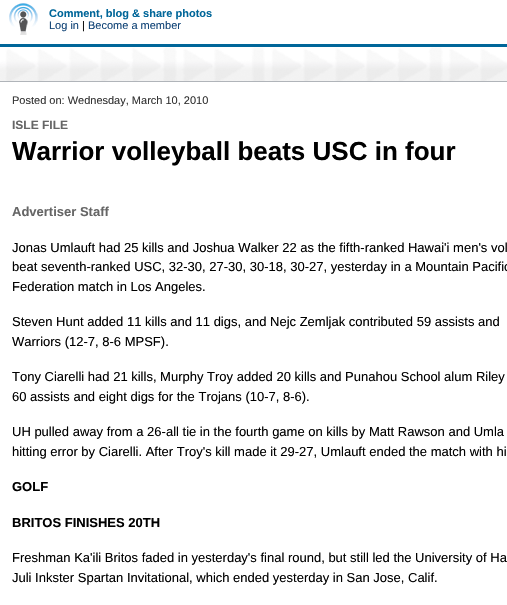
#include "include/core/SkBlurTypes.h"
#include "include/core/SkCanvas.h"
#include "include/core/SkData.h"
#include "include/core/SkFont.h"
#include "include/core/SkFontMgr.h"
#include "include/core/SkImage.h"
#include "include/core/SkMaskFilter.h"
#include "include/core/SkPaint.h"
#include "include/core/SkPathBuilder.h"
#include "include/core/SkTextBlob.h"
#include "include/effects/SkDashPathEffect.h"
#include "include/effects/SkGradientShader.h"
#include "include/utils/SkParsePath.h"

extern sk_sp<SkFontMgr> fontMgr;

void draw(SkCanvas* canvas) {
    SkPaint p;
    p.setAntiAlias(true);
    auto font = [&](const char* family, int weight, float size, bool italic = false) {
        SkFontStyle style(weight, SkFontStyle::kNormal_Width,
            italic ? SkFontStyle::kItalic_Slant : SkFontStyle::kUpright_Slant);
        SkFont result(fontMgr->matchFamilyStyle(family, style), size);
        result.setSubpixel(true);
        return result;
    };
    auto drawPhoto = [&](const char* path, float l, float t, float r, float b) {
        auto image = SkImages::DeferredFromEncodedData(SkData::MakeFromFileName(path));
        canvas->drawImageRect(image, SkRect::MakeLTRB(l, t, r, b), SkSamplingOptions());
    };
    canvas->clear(0xFFFFFFFF);
    p.setColor(0xFF006699);
    canvas->drawRect(SkRect::MakeLTRB(0, 44, 507, 47), p);
    drawPhoto("media/1.png", 9, 3, 38, 35);
    auto font1 = font("Liberation Sans", 700, 11);
    canvas->drawString("Comment, blog & share photos", 49, 17, font1, p);
    auto font2 = font("Liberation Sans", 400, 11);
    p.setColor(0xFF114477);
    canvas->drawString("Log in", 49, 29, font2, p);
    p.setColor(0xFF000000);
    canvas->drawString("|", 82, 29, font2, p);
    p.setColor(0xFF114477);
    canvas->drawString("Become a member", 88, 29, font2, p);
    drawPhoto("media/2.png", 0, 47, 507, 81);
    p.setColor(0xFFB0B4B9);
    canvas->drawRect(SkRect::MakeLTRB(0, 81, 507, 82), p);
    p.setColor(0xFF333333);
    canvas->drawString("Posted on: Wednesday, March 10, 2010", 12, 104, font2, p);
    auto font3 = font("Liberation Sans", 700, 12);
    p.setColor(0xFF666666);
    canvas->drawString("ISLE FILE", 12, 129, font3, p);
    auto font4 = font("Liberation Sans", 700, 26);
    p.setColor(0xFF000000);
    canvas->drawString("Warrior volleyball beats USC in four", 12, 160, font4, p);
    auto font5 = font("Liberation Sans", 700, 13);
    p.setColor(0xFF666666);
    canvas->drawString("Advertiser Staff", 12, 216, font5, p);
    auto font6 = font("Liberation Sans", 400, 13);
    p.setColor(0xFF000000);
    {
        const struct { const char* s; float x, y; } items[] = {
            {"Jonas Umlauft had 25 kills and Joshua Walker 22 as the fifth-ranked Hawai'i men's vol", 12, 252},
            {"beat seventh-ranked USC, 32-30, 27-30, 30-18, 30-27, yesterday in a Mountain Pacific", 12, 271},
            {"Federation match in Los Angeles.", 12, 291},
            {"Steven Hunt added 11 kills and 11 digs, and Nejc Zemljak contributed 59 assists and", 12, 326},
            {"Warriors (12-7, 8-6 MPSF).", 12, 346},
            {"Tony Ciarelli had 21 kills, Murphy Troy added 20 kills and Punahou School alum Riley", 12, 381},
            {"60 assists and eight digs for the Trojans (10-7, 8-6).", 12, 401},
            {"UH pulled away from a 26-all tie in the fourth game on kills by Matt Rawson and Umla", 12, 436},
            {"hitting error by Ciarelli. After Troy's kill made it 29-27, Umlauft ended the match with hi", 12, 456},
        };
        for (auto [s, x, y] : items) {
            canvas->drawString(s, x, y, font6, p);
        }
    }
    canvas->drawString("GOLF", 12, 491, font5, p);
    canvas->drawString("BRITOS FINISHES 20TH", 12, 527, font5, p);
    canvas->drawString("Freshman Ka'ili Britos faded in yesterday's final round, but still led the University of Ha", 12, 562, font6, p);
    canvas->drawString("Juli Inkster Spartan Invitational, which ended yesterday in San Jose, Calif.", 12, 582, font6, p);
}
